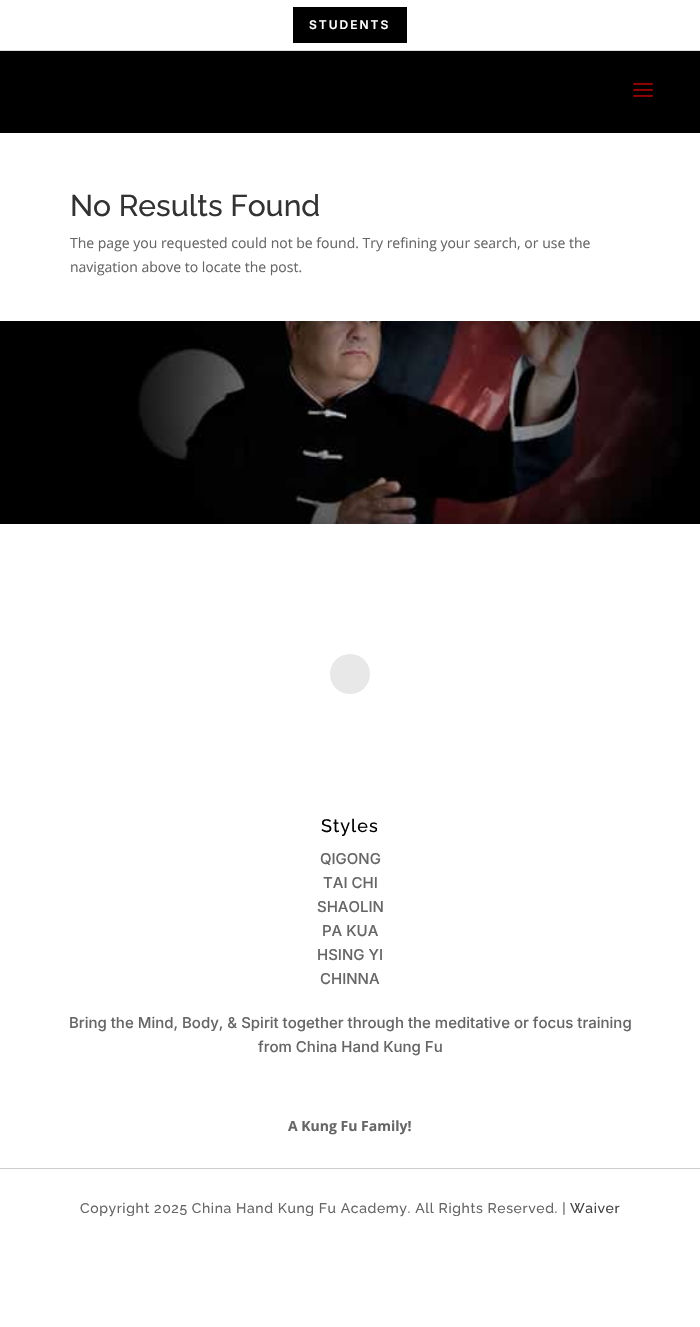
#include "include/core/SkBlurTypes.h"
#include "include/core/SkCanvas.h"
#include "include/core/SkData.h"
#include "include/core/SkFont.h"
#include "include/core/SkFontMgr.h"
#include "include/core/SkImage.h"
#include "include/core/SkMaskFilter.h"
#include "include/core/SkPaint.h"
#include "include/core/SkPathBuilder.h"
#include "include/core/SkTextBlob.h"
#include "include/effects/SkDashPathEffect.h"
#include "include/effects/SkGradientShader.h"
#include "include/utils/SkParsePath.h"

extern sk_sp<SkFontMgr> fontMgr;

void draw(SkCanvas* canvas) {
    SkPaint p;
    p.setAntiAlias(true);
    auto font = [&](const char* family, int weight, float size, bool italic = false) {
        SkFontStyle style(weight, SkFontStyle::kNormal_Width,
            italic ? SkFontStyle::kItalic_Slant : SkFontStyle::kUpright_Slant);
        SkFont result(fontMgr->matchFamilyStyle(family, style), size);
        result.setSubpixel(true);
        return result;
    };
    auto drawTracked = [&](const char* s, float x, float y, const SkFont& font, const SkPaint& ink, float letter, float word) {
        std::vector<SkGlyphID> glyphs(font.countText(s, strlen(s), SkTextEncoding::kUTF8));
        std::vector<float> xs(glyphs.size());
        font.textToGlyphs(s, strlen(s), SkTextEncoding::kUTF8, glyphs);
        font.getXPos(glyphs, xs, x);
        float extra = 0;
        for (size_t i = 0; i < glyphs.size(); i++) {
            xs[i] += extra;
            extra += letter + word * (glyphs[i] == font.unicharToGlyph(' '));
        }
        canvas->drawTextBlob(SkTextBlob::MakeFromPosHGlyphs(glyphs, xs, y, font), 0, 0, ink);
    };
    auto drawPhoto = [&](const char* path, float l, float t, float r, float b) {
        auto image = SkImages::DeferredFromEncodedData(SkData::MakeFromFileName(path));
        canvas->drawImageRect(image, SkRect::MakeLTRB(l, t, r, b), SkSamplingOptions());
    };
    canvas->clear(0xFFFFFFFF);
    p.setColor(0xFFDDDDDD);
    canvas->drawRect(SkRect::MakeLTRB(0, 50, 700, 51), p);
    p.setColor(0xFF000000);
    canvas->drawRect(SkRect::MakeLTRB(293, 7, 407, 43), p);
    auto font1 = font("Inter", 600, 12);
    p.setColor(0xFFFFFFFF);
    drawTracked("STUDENTS", 309, 29, font1, p, 2, 0);
    p.setColor(0xFF000000);
    canvas->drawRect(SkRect::MakeLTRB(0, 51, 700, 133), p);
    drawPhoto("media/1.png", 633, 82, 653, 97);
    auto font2 = font("Raleway", 500, 30);
    p.setColor(0xFF333333);
    canvas->drawString("No Results Found", 70, 216, font2, p);
    auto font3 = font("Open Sans", 400, 14);
    p.setColor(0xFF666666);
    canvas->drawString("The page you requested could not be found. Try refining your search, or use the", 70, 248, font3, p);
    canvas->drawString("navigation above to locate the post.", 70, 272, font3, p);
    drawPhoto("media/2.png", 0, 321, 700, 524);
    p.setColor(0xFFE8E8E8);
    canvas->drawCircle(350, 674, 20, p);
    auto font4 = font("Raleway", 500, 18);
    p.setColor(0xFF000000);
    drawTracked("Styles", 321, 832, font4, p, 1, 0);
    auto font5 = font("Inter", 500, 15);
    p.setColor(0xFF666666);
    {
        const struct { const char* s; float x, y; } items[] = {
            {"QIGONG", 320, 864},
            {"TAI CHI", 323, 888},
            {"SHAOLIN", 317, 912},
            {"PA KUA", 322, 936},
            {"HSING YI", 317, 960},
            {"CHINNA", 320, 984},
            {"Bring the Mind, Body, & Spirit together through the meditative or focus training", 69, 1028},
            {"from China Hand Kung Fu", 258, 1052},
        };
        for (auto [s, x, y] : items) {
            canvas->drawString(s, x, y, font5, p);
        }
    }
    auto font6 = font("Open Sans", 700, 14);
    canvas->drawString("A Kung Fu Family!", 288, 1131, font6, p);
    p.setColor(0xFFCCCCCC);
    canvas->drawRect(SkRect::MakeLTRB(0, 1168, 700, 1169), p);
    auto font7 = font("Raleway", 500, 14);
    p.setColor(0xFF666666);
    drawTracked("Copyright 2025 China Hand Kung Fu Academy. All Rights Reserved. |", 80, 1213, font7, p, 0.6f, 0);
    p.setColor(0xFF404040);
    drawTracked("Waiver", 570, 1213, font7, p, 0.6f, 0);
}
